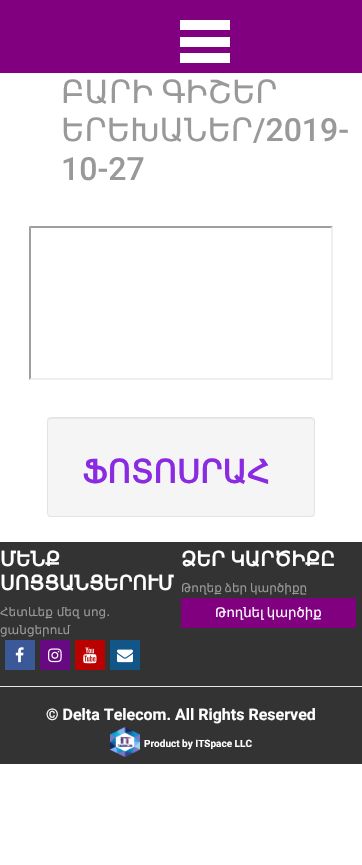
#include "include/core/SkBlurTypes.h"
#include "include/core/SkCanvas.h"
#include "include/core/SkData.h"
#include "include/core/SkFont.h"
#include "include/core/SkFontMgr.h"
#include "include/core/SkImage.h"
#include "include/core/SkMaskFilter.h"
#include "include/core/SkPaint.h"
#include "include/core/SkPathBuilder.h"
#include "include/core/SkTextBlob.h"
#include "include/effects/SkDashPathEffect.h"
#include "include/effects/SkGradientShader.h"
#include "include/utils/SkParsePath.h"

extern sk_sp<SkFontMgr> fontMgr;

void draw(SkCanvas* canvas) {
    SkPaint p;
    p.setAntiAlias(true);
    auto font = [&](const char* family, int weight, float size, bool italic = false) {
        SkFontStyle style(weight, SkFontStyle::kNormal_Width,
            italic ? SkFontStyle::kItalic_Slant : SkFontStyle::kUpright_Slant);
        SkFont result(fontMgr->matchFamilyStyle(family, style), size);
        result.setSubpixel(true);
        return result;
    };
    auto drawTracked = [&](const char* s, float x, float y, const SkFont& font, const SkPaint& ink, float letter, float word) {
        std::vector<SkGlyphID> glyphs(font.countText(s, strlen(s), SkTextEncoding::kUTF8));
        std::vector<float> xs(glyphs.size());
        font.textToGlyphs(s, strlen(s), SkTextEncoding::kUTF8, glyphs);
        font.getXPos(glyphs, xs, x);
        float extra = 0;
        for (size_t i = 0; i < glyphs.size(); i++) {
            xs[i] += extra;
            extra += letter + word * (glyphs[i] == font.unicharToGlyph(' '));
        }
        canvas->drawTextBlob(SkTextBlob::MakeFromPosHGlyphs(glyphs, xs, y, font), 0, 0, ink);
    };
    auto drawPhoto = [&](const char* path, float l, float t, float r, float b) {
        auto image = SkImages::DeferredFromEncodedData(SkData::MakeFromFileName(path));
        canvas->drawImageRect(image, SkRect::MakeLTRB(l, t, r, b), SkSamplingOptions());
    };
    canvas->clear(0xFFFFFFFF);
    {
        const struct { float l, t, r, b; SkColor color; } items[] = {
            {0, 0, 362, 73, 0xFF800080},
            {180, 20, 230, 30, 0xFFFFFFFF},
            {180, 37, 230, 47, 0xFFFFFFFF},
            {180, 53, 230, 63, 0xFFFFFFFF},
        };
        for (auto [l, t, r, b, color] : items) {
            p.setColor(color);
            canvas->drawRect(SkRect::MakeLTRB(l, t, r, b), p);
        }
    }
    auto font1 = font("DejaVu Sans", 400, 32);
    p.setColor(0xFF999999);
    drawTracked("ԲԱՐԻ ԳԻՇԵՐ", 61, 103, font1, p, 0, -2);
    canvas->drawString("ԵՐԵԽԱՆԵՐ", 61, 141, font1, p);
    auto font2 = font("Roboto", 500, 32);
    canvas->drawString("/2019-", 253, 141, font2, p);
    canvas->drawString("10-27", 61, 180, font2, p);
    p.setColor(0xFF9F9F9F);
    canvas->drawPath(SkPathBuilder().moveTo(29, 226).lineTo(333, 226).lineTo(331, 228).lineTo(31, 228).close().detach(), p);
    p.setColor(0xFFEEEEEE);
    canvas->drawPath(SkPathBuilder().moveTo(333, 226).lineTo(333, 380).lineTo(331, 378).lineTo(331, 228).close().detach(), p);
    canvas->drawPath(SkPathBuilder().moveTo(333, 380).lineTo(29, 380).lineTo(31, 378).lineTo(331, 378).close().detach(), p);
    p.setColor(0xFF9F9F9F);
    canvas->drawPath(SkPathBuilder().moveTo(29, 380).lineTo(29, 226).lineTo(31, 228).lineTo(31, 378).close().detach(), p);
    p.setColor(0xFFF5F5F5);
    canvas->drawRoundRect(SkRect::MakeLTRB(47, 417, 315, 517), 4, 4, p);
    p.setColor(0xFFE9E9E9);
    canvas->drawPath(SkPathBuilder().moveTo(51, 419).lineTo(311, 419).cubicTo(313, 419, 314, 420, 314, 422).lineTo(314, 421).cubicTo(314, 419, 313, 418, 311, 418).lineTo(51, 418).cubicTo(49, 418, 48, 419, 48, 421).lineTo(48, 422).cubicTo(48, 420, 49, 419, 51, 419).close().detach(), p);
    p.setStyle(SkPaint::kStroke_Style);
    p.setStrokeWidth(1);
    p.setColor(0xFFE3E3E3);
    canvas->drawRoundRect(SkRect::MakeLTRB(47.5f, 417.5f, 314.5f, 516.5f), 3.5f, 3.5f, p);
    auto font3 = font("DejaVu Sans", 700, 32);
    p.setStyle(SkPaint::kFill_Style);
    p.setColor(0xFF8A2BE2);
    canvas->drawString("ՖՈՏՈՍՐԱՀ", 82, 483, font3, p);
    p.setColor(0xFF333333);
    canvas->drawRect(SkRect::MakeLTRB(0, 542, 362, 764), p);
    auto font4 = font("DejaVu Sans", 700, 20);
    p.setColor(0xFFFFFFFF);
    canvas->drawString("ՄԵՆՔ", 0, 566, font4, p);
    canvas->drawString("ՍՈՑՑԱՆՑԵՐՈՒՄ", 0, 590, font4, p);
    auto font5 = font("DejaVu Sans", 400, 12);
    p.setColor(0xFF999999);
    canvas->drawString("Հետևեք մեզ սոց․", 0, 616, font5, p);
    canvas->drawString("ցանցերում", 0, 634, font5, p);
    p.setColor(0xFF3B5998);
    canvas->drawRect(SkRect::MakeLTRB(5, 640, 35, 670), p);
    drawPhoto("media/1.png", 15, 647, 24, 663);
    p.setColor(0xFF670980);
    canvas->drawRect(SkRect::MakeLTRB(40, 640, 70, 670), p);
    drawPhoto("media/2.png", 48, 648, 62, 663);
    p.setColor(0xFFBB0000);
    canvas->drawRect(SkRect::MakeLTRB(75, 640, 105, 670), p);
    drawPhoto("media/3.png", 83, 647, 97, 664);
    p.setColor(0xFF125688);
    canvas->drawRect(SkRect::MakeLTRB(110, 640, 140, 670), p);
    drawPhoto("media/4.png", 117, 649, 133, 663);
    p.setColor(0xFFFFFFFF);
    drawTracked("ՁԵՐ ԿԱՐԾԻՔԸ", 181, 566, font4, p, 0, -1);
    p.setColor(0xFF999999);
    drawTracked("Թողեք ձեր կարծիքը", 181, 592, font5, p, 0, -1);
    p.setColor(0xFF800080);
    canvas->drawRect(SkRect::MakeLTRB(181, 598, 356, 628), p);
    auto font6 = font("DejaVu Sans", 400, 13.25f);
    p.setColor(0xFFFFFFFF);
    drawTracked("Թողնել կարծիք", 215, 617, font6, p, 0, -1);
    p.setColor(0xFFE6E6E6);
    canvas->drawRect(SkRect::MakeLTRB(0, 686, 362, 687), p);
    auto font7 = font("Roboto", 700, 16);
    p.setColor(0xFFFFFFFF);
    canvas->drawString("© Delta Telecom. All Rights Reserved", 46, 720, font7, p);
    drawPhoto("media/5.png", 110, 727, 140, 757);
    auto font8 = font("Roboto", 700, 10);
    canvas->drawString("Product by ITSpace LLC", 144, 747, font8, p);
}
